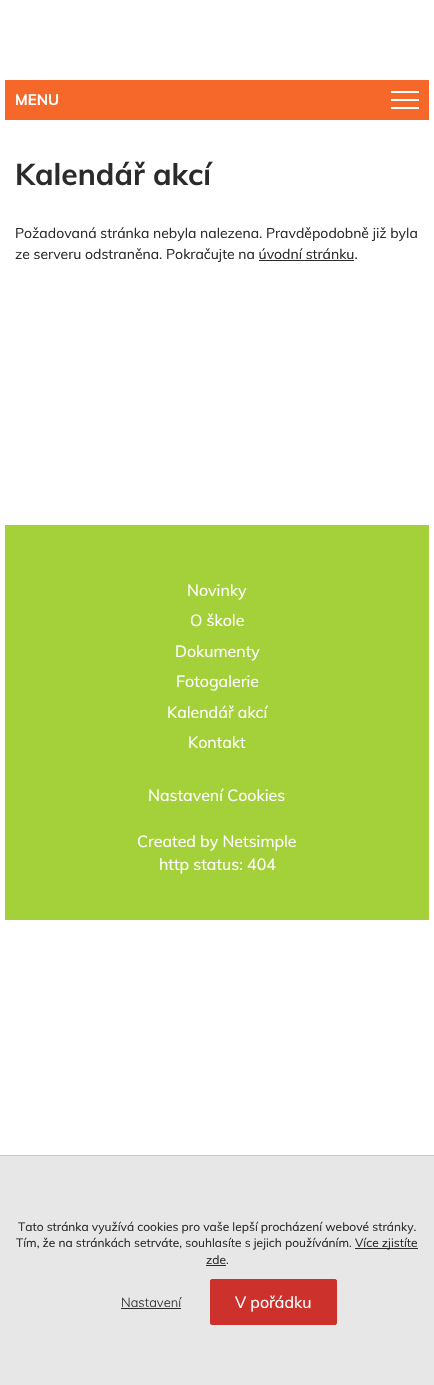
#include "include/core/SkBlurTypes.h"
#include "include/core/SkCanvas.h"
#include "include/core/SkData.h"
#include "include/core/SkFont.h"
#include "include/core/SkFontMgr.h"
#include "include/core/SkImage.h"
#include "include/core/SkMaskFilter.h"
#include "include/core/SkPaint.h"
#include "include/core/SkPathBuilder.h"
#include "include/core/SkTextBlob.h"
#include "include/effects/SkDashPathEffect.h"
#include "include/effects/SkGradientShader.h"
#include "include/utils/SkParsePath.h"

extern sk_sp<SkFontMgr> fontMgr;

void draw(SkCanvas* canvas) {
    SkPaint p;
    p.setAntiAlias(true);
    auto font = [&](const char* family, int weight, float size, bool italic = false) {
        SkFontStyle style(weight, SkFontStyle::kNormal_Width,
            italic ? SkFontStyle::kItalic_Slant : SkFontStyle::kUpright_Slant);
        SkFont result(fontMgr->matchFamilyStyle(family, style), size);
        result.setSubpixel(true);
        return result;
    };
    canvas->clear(0xFFFFFFFF);
    p.setColor(0xFFF6682A);
    canvas->drawRect(SkRect::MakeLTRB(5, 80, 429, 120), p);
    auto font1 = font("Muli", 700, 15);
    p.setColor(0xFFFFFFFF);
    canvas->drawString("MENU", 15, 105, font1, p);
    {
        const struct { float l, t, r, b; SkColor color; } items[] = {
            {391, 99, 419, 101, 0xFFFFFFFF},
            {391, 91, 419, 93, 0xFFFFFFFF},
            {391, 107, 419, 109, 0xFFFFFFFF},
        };
        for (auto [l, t, r, b, color] : items) {
            p.setColor(color);
            canvas->drawRect(SkRect::MakeLTRB(l, t, r, b), p);
        }
    }
    auto font2 = font("Muli", 700, 30);
    p.setColor(0xFF2B2B2B);
    canvas->drawString("Kalendář akcí", 15, 185, font2, p);
    auto font3 = font("Muli", 400, 14);
    canvas->drawString("Požadovaná stránka nebyla nalezena. Pravděpodobně již byla", 15, 238, font3, p);
    canvas->drawString("ze serveru odstraněna. Pokračujte na úvodní stránku.", 15, 259, font3, p);
    canvas->drawRect(SkRect::MakeLTRB(259, 260, 354, 261), p);
    p.setColor(0xFFA4D13A);
    canvas->drawRect(SkRect::MakeLTRB(5, 525, 429, 920), p);
    auto font4 = font("Muli", 400, 16);
    p.setColor(0xFFFFFFFF);
    {
        const struct { const char* s; float x, y; } items[] = {
            {"Novinky", 187, 596},
            {"O škole", 190, 626},
            {"Dokumenty", 175, 657},
            {"Fotogalerie", 176, 687},
            {"Kalendář akcí", 167, 718},
            {"Kontakt", 188, 748},
            {"Nastavení Cookies", 148, 801},
            {"Created by Netsimple", 137, 847},
            {"http status: 404", 159, 870},
        };
        for (auto [s, x, y] : items) {
            canvas->drawString(s, x, y, font4, p);
        }
    }
    p.setColor(0xFFE7E7E7);
    canvas->drawRect(SkRect::MakeLTRB(0, 1156, 434, 1385), p);
    p.setColor(0xFFC9C9C9);
    canvas->drawRect(SkRect::MakeLTRB(0, 1155, 434, 1156), p);
    auto font5 = font("Muli", 400, 12);
    p.setColor(0xFF2B2B2B);
    canvas->drawString("Tato stránka využívá cookies pro vaše lepší procházení webové stránky.", 18, 1231, font5, p);
    canvas->drawString("Tím, že na stránkách setrváte, souhlasíte s jejich používáním.", 16, 1247, font5, p);
    canvas->drawRect(SkRect::MakeLTRB(355, 1248, 418, 1249), p);
    canvas->drawString("Více zjistíte", 355, 1247, font5, p);
    canvas->drawString("zde.", 206, 1264, font5, p);
    canvas->drawRect(SkRect::MakeLTRB(206, 1265, 226, 1266), p);
    auto font6 = font("Muli", 300, 13);
    canvas->drawString("Nastavení", 121, 1307, font6, p);
    canvas->drawRect(SkRect::MakeLTRB(121, 1308, 181, 1309), p);
    p.setColor(0xFFCD312C);
    canvas->drawRoundRect(SkRect::MakeLTRB(210.5f, 1279.5f, 336.5f, 1324.5f), 1.5f, 1.5f, p);
    p.setStyle(SkPaint::kStroke_Style);
    p.setStrokeWidth(1);
    canvas->drawRoundRect(SkRect::MakeLTRB(210.5f, 1279.5f, 336.5f, 1324.5f), 1.5f, 1.5f, p);
    p.setStyle(SkPaint::kFill_Style);
    p.setColor(0xFFFFFFFF);
    canvas->drawString("V pořádku", 235, 1308, font4, p);
}
